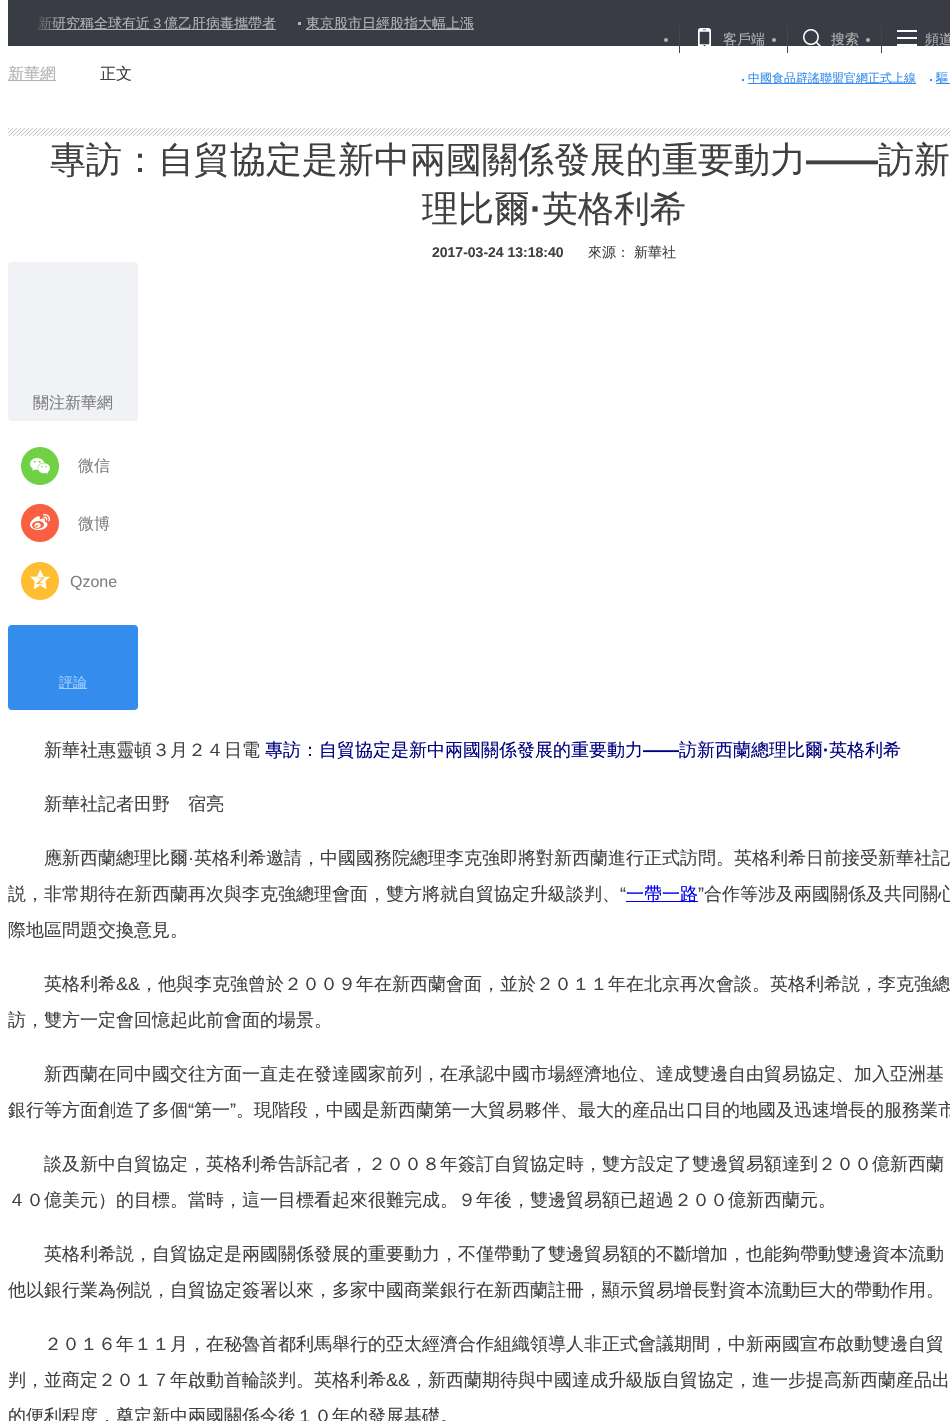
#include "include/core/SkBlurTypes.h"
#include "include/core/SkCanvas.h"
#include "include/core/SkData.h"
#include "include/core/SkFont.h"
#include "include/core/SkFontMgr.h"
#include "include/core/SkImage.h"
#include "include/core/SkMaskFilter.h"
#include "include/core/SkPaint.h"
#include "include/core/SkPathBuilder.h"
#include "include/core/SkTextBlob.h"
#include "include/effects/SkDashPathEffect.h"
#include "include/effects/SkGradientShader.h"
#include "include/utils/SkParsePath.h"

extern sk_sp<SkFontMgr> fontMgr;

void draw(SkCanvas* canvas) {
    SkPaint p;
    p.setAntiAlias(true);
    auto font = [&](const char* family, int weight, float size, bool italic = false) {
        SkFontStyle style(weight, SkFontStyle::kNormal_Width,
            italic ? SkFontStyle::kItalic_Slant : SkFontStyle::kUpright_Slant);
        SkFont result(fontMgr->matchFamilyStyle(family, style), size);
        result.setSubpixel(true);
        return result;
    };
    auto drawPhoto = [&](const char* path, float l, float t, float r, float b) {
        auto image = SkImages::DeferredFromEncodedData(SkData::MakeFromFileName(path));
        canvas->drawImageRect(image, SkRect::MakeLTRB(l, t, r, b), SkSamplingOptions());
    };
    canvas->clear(0xFFFFFFFF);
    p.setColor(0xFF393C44);
    canvas->drawRect(SkRect::MakeLTRB(8, 0, 950, 46), p);
    p.setColor(0xFFB3B3B3);
    canvas->drawRect(SkRect::MakeLTRB(38, 29, 276, 30), p);
    auto font1 = font("WenQuanYi Zen Hei", 500, 14);
    canvas->drawString("新研究稱全球有近３億乙肝病毒攜帶者", 38, 28, font1, p);
    drawPhoto("media/1.png", 30, 16, 62, 30);
    canvas->drawRect(SkRect::MakeLTRB(298, 22, 301, 25), p);
    canvas->drawRect(SkRect::MakeLTRB(306, 29, 474, 30), p);
    canvas->drawString("東京股市日經股指大幅上漲", 306, 28, font1, p);
    canvas->drawCircle(666, 40, 2, p);
    p.setColor(0xFF464646);
    canvas->drawRect(SkRect::MakeLTRB(679, 25, 680, 53), p);
    drawPhoto("media/2.png", 698, 28, 711, 46);
    p.setColor(0xFFB3B3B3);
    canvas->drawString("客戶端", 723, 44, font1, p);
    canvas->drawCircle(774, 40, 2, p);
    p.setColor(0xFF464646);
    canvas->drawRect(SkRect::MakeLTRB(787, 25, 788, 53), p);
    drawPhoto("media/3.png", 803, 29, 821, 46);
    p.setColor(0xFFB3B3B3);
    canvas->drawString("搜索", 831, 44, font1, p);
    canvas->drawCircle(868, 40, 2, p);
    p.setColor(0xFF464646);
    canvas->drawRect(SkRect::MakeLTRB(881, 25, 882, 53), p);
    drawPhoto("media/4.png", 897, 30, 917, 46);
    p.setColor(0xFFB3B3B3);
    canvas->drawString("頻道", 925, 44, font1, p);
    drawPhoto("media/5.png", 8, 128, 950, 136);
    canvas->drawRect(SkRect::MakeLTRB(8, 80, 56, 81), p);
    auto font2 = font("WenQuanYi Zen Hei", 500, 16);
    canvas->drawString("新華網", 8, 79, font2, p);
    p.setColor(0xFF404040);
    canvas->drawString("正文", 100, 79, font2, p);
    p.setColor(0xFF348CEC);
    canvas->drawRect(SkRect::MakeLTRB(742, 79, 744, 81), p);
    canvas->drawRect(SkRect::MakeLTRB(748, 83, 916, 84), p);
    auto font3 = font("WenQuanYi Zen Hei", 500, 12);
    canvas->drawString("中國食品辟謠聯盟官網正式上線", 748, 82, font3, p);
    canvas->drawRect(SkRect::MakeLTRB(930, 79, 932, 81), p);
    canvas->drawRect(SkRect::MakeLTRB(936, 83, 950, 84), p);
    canvas->drawString("驅", 936, 82, font3, p);
    auto font4 = font("WenQuanYi Zen Hei", 500, 36);
    p.setColor(0xFF404040);
    canvas->drawString("專訪：自貿協定是新中兩國關係發展的重要動力", 50, 172, font4, p);
    auto font5 = font("Liberation Sans", 700, 36);
    canvas->drawString("——", 806, 172, font5, p);
    canvas->drawString("訪新", 878, 172, font4, p);
    canvas->drawString("理比爾", 422, 221, font4, p);
    canvas->drawString("·", 530, 221, font5, p);
    canvas->drawString("英格利希", 542, 221, font4, p);
    auto font6 = font("Liberation Sans", 700, 14);
    canvas->drawString("2017-03-24 13:18:40", 432, 257, font6, p);
    canvas->drawString("來源：", 588, 257, font1, p);
    canvas->drawString("新華社", 634, 257, font1, p);
    p.setColor(0xFFF0F2F5);
    canvas->drawRoundRect(SkRect::MakeLTRB(8, 262, 138, 421), 4, 4, p);
    p.setColor(0xFF808080);
    canvas->drawString("關注新華網", 33, 408, font2, p);
    drawPhoto("media/6.png", 21, 447, 59, 485);
    canvas->drawString("微信", 78, 471, font2, p);
    drawPhoto("media/7.png", 21, 504, 59, 542);
    canvas->drawString("微博", 78, 529, font2, p);
    drawPhoto("media/8.png", 21, 562, 59, 600);
    auto font7 = font("Liberation Sans", 400, 16);
    canvas->drawString("Qzone", 70, 587, font7, p);
    p.setColor(0xFF348CEC);
    canvas->drawRoundRect(SkRect::MakeLTRB(8, 625, 138, 710), 4, 4, p);
    p.setColor(0xFFA0CDFF);
    canvas->drawRect(SkRect::MakeLTRB(59, 688, 87, 689), p);
    canvas->drawString("評論", 59, 687, font1, p);
    auto font8 = font("WenQuanYi Zen Hei", 500, 18);
    p.setColor(0xFF404040);
    canvas->drawString("新華社惠靈頓３月２４日電", 44, 756, font8, p);
    p.setColor(0xFF000080);
    canvas->drawString("專訪：自貿協定是新中兩國關係發展的重要動力", 265, 756, font8, p);
    auto font9 = font("Liberation Sans", 700, 18);
    canvas->drawString("——", 643, 756, font9, p);
    canvas->drawString("訪新西蘭總理比爾", 679, 756, font8, p);
    canvas->drawString("·", 823, 756, font9, p);
    canvas->drawString("英格利希", 829, 756, font8, p);
    p.setColor(0xFF404040);
    canvas->drawString("新華社記者田野　宿亮", 44, 810, font8, p);
    canvas->drawString("應新西蘭總理比爾", 44, 864, font8, p);
    auto font10 = font("Liberation Sans", 400, 18);
    canvas->drawString("·", 188, 864, font10, p);
    canvas->drawString("英格利希邀請，中國國務院總理李克強即將對新西蘭進行正式訪問。英格利希日前接受新華社記", 194, 864, font8, p);
    canvas->drawString("説，非常期待在新西蘭再次與李克強總理會面，雙方將就自貿協定升級談判、", 8, 900, font8, p);
    canvas->drawString("“", 620, 900, font10, p);
    p.setColor(0xFF0000EE);
    canvas->drawRect(SkRect::MakeLTRB(626, 901, 698, 902), p);
    canvas->drawString("一帶一路", 626, 900, font8, p);
    p.setColor(0xFF404040);
    canvas->drawString("”", 698, 900, font10, p);
    {
        const struct { const char* s; float x, y; } items[] = {
            {"合作等涉及兩國關係及共同關心", 704, 900},
            {"際地區問題交換意見。", 8, 936},
            {"英格利希", 44, 990},
        };
        for (auto [s, x, y] : items) {
            canvas->drawString(s, x, y, font8, p);
        }
    }
    canvas->drawString("&&", 116, 990, font10, p);
    {
        const struct { const char* s; float x, y; } items[] = {
            {"，他與李克強曾於２００９年在新西蘭會面，並於２０１１年在北京再次會談。英格利希説，李克強總", 140, 990},
            {"訪，雙方一定會回憶起此前會面的場景。", 8, 1026},
            {"新西蘭在同中國交往方面一直走在發達國家前列，在承認中國市場經濟地位、達成雙邊自由貿易協定、加入亞洲基", 44, 1080},
            {"銀行等方面創造了多個", 8, 1116},
        };
        for (auto [s, x, y] : items) {
            canvas->drawString(s, x, y, font8, p);
        }
    }
    canvas->drawString("“", 188, 1116, font10, p);
    canvas->drawString("第一", 194, 1116, font8, p);
    canvas->drawString("”", 230, 1116, font10, p);
    {
        const struct { const char* s; float x, y; } items[] = {
            {"。現階段，中國是新西蘭第一大貿易夥伴、最大的産品出口目的地國及迅速增長的服務業市", 236, 1116},
            {"談及新中自貿協定，英格利希告訴記者，２００８年簽訂自貿協定時，雙方設定了雙邊貿易額達到２００億新西蘭", 44, 1170},
            {"４０億美元）的目標。當時，這一目標看起來很難完成。９年後，雙邊貿易額已超過２００億新西蘭元。", 8, 1206},
            {"英格利希説，自貿協定是兩國關係發展的重要動力，不僅帶動了雙邊貿易額的不斷增加，也能夠帶動雙邊資本流動", 44, 1260},
            {"他以銀行業為例説，自貿協定簽署以來，多家中國商業銀行在新西蘭註冊，顯示貿易增長對資本流動巨大的帶動作用。", 8, 1296},
            {"２０１６年１１月，在秘魯首都利馬舉行的亞太經濟合作組織領導人非正式會議期間，中新兩國宣布啟動雙邊自貿", 44, 1350},
            {"判，並商定２０１７年啟動首輪談判。英格利希", 8, 1386},
        };
        for (auto [s, x, y] : items) {
            canvas->drawString(s, x, y, font8, p);
        }
    }
    canvas->drawString("&&", 386, 1386, font10, p);
    canvas->drawString("，新西蘭期待與中國達成升級版自貿協定，進一步提高新西蘭産品出", 410, 1386, font8, p);
    canvas->drawString("的便利程度，奠定新中兩國關係今後１０年的發展基礎。", 8, 1422, font8, p);
}
